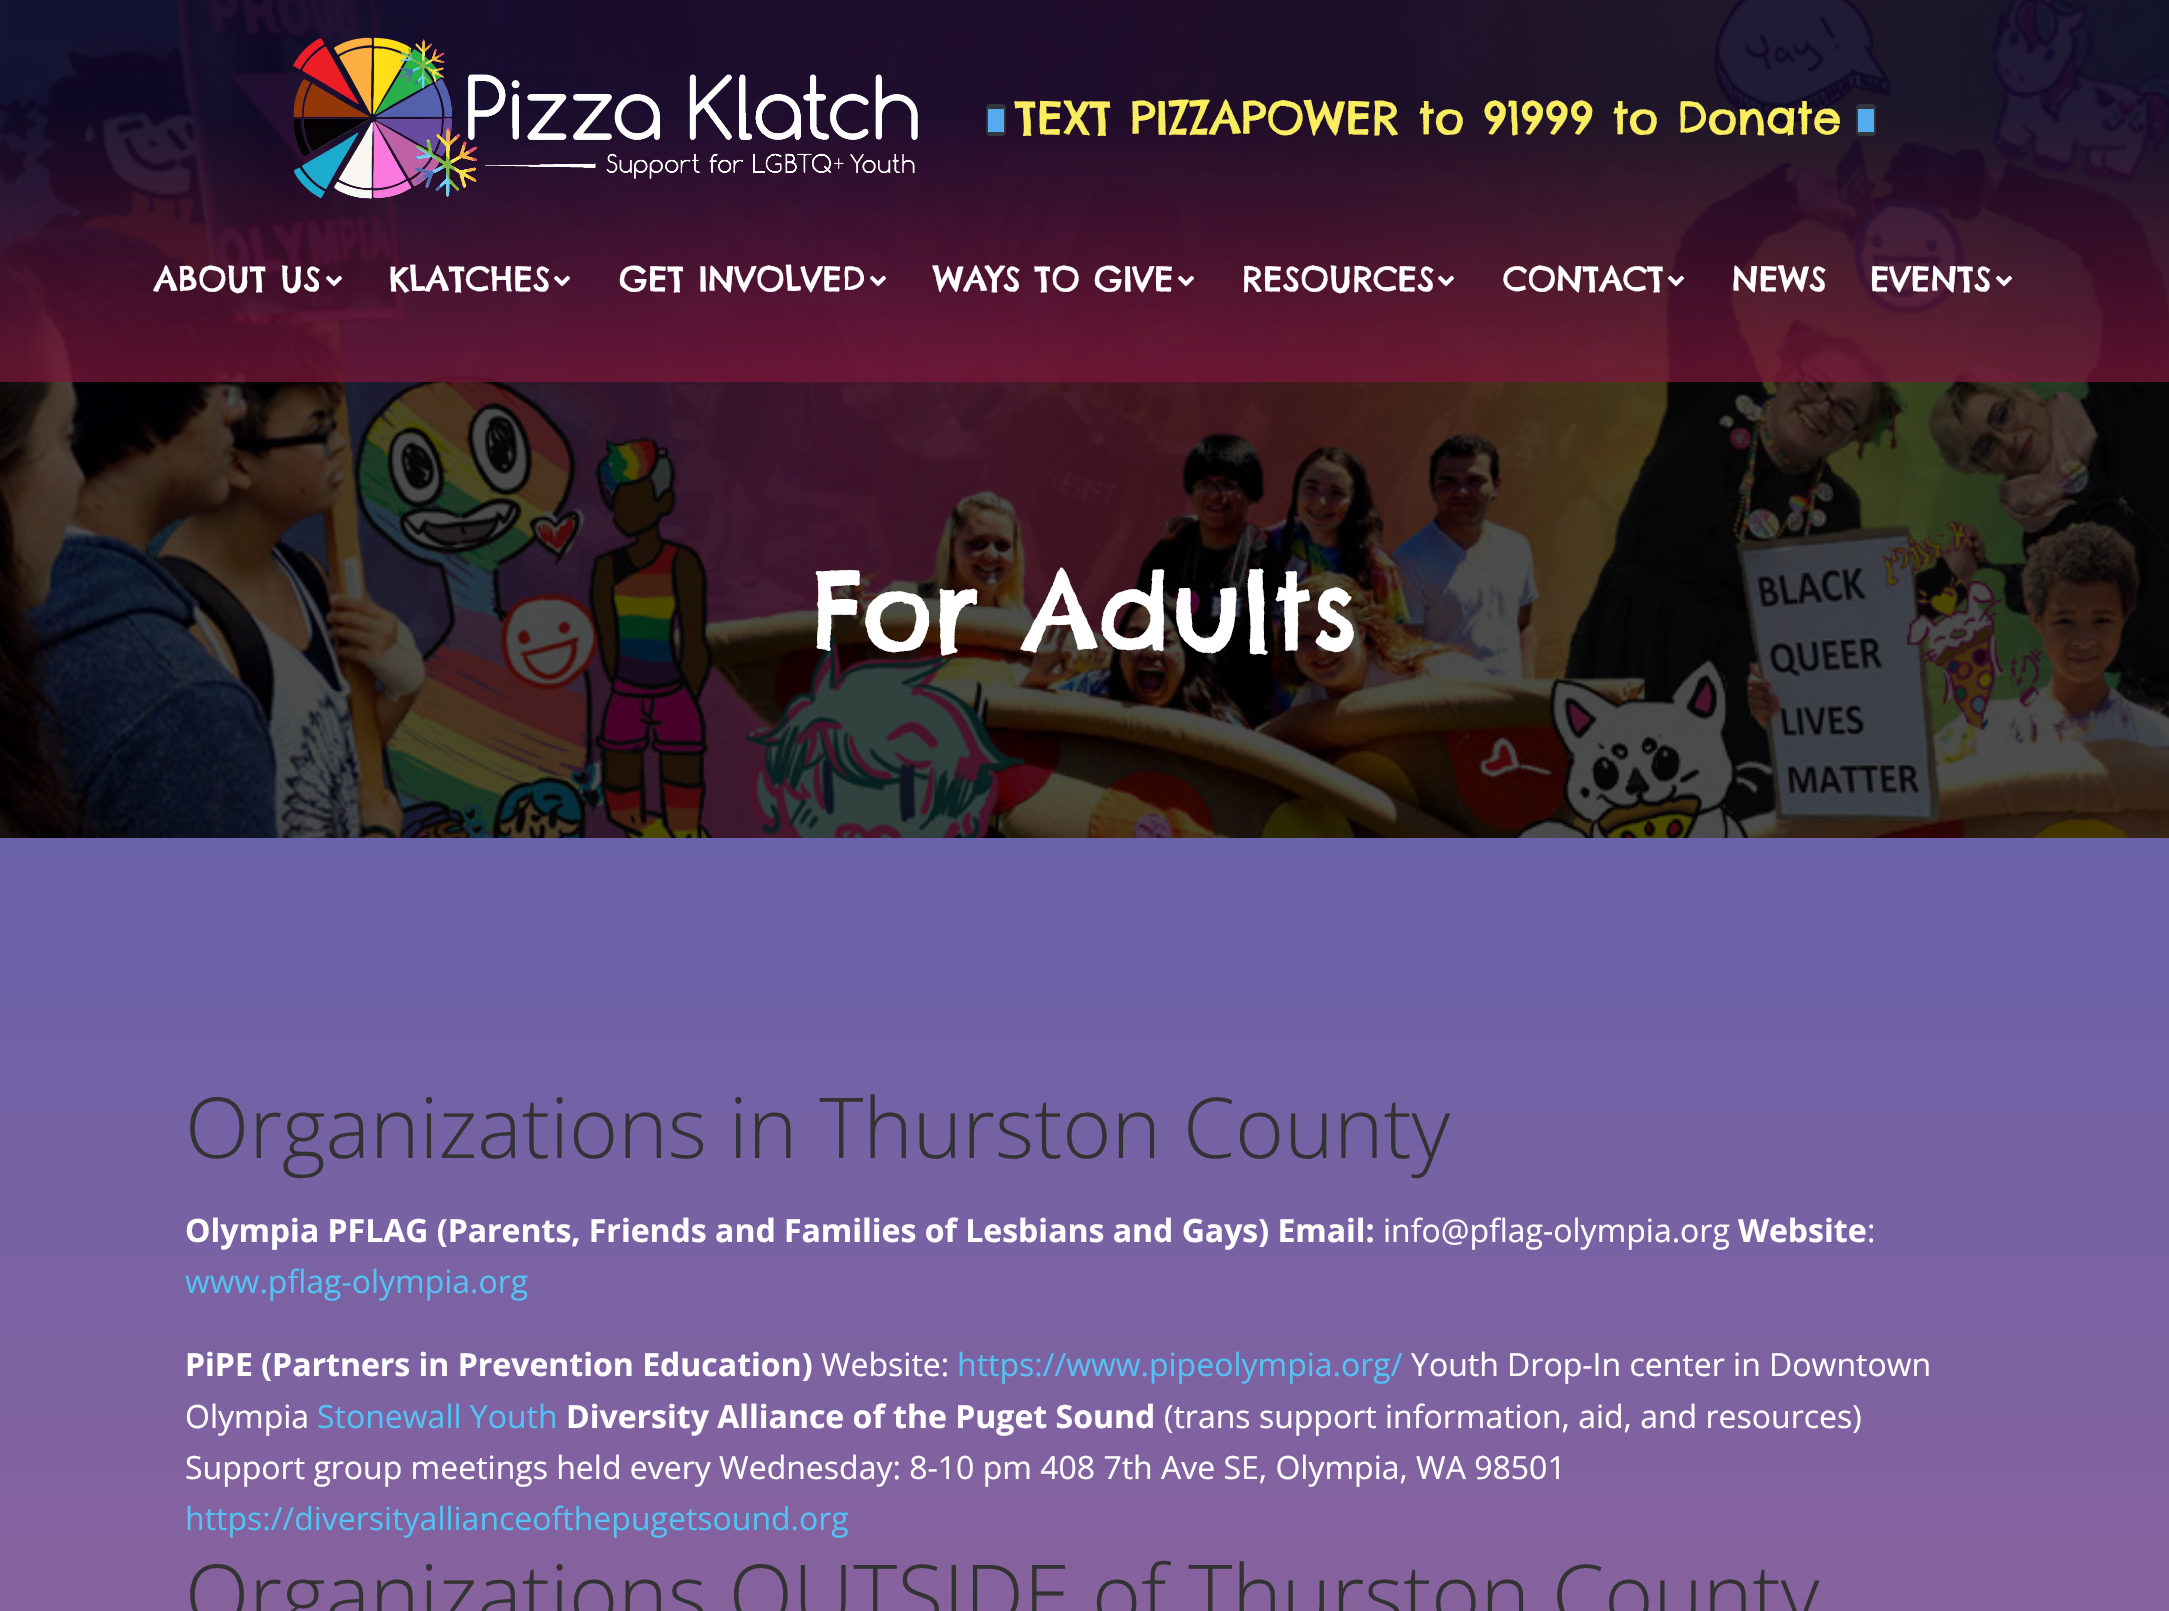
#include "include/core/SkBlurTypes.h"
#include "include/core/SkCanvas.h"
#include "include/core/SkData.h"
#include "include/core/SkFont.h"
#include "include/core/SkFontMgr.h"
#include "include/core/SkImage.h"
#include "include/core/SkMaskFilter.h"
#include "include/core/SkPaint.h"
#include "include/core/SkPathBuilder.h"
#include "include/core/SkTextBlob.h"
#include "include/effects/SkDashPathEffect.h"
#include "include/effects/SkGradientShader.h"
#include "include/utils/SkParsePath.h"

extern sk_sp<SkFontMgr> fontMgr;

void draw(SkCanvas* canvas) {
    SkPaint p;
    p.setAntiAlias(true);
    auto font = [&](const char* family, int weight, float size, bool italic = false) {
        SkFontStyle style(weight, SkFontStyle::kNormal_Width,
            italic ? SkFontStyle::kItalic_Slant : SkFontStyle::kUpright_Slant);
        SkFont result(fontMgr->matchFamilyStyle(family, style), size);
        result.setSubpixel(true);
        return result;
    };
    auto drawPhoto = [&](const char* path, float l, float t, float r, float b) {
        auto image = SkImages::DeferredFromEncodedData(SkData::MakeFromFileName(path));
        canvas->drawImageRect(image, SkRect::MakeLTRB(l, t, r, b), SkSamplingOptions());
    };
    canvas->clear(0xFFFFFFFF);
    drawPhoto("media/11.png", 0, 0, 2169, 838);
    drawPhoto("media/1.png", 293, 37, 918, 199);
    drawPhoto("media/2.png", 986, 104, 1006, 136);
    auto font1 = font("Chelsea Market", 400, 45.25f);
    p.setColor(0xFFFBED60);
    canvas->drawString("TEXT PIZZAPOWER to 91999 to Donate", 1015, 134, font1, p);
    drawPhoto("media/3.png", 1856, 104, 1876, 136);
    auto font2 = font("Chelsea Market", 400, 34);
    p.setColor(0xFFFFFFFF);
    canvas->drawString("ABOUT US", 154, 291, font2, p);
    drawPhoto("media/4.png", 326, 275, 342, 287);
    canvas->drawString("KLATCHES", 389, 291, font2, p);
    drawPhoto("media/5.png", 554, 275, 570, 287);
    canvas->drawString("GET INVOLVED", 619, 291, font2, p);
    drawPhoto("media/6.png", 870, 275, 886, 287);
    canvas->drawString("WAYS TO GIVE", 933, 291, font2, p);
    drawPhoto("media/7.png", 1178, 275, 1194, 287);
    canvas->drawString("RESOURCES", 1242, 291, font2, p);
    drawPhoto("media/8.png", 1438, 275, 1454, 287);
    canvas->drawString("CONTACT", 1503, 291, font2, p);
    drawPhoto("media/9.png", 1668, 275, 1684, 287);
    canvas->drawString("NEWS", 1732, 291, font2, p);
    canvas->drawString("EVENTS", 1870, 291, font2, p);
    drawPhoto("media/10.png", 1996, 275, 2012, 287);
    auto font3 = font("Chelsea Market", 400, 108);
    canvas->drawString("For Adults", 811, 650, font3, p);
    {
        const SkColor colors[] = {0xFFF6626C, 0xFF6A62AA};
        const float stops[] = {0, 1};
        const SkPoint ends[] = {{1085, 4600}, {1085, 838}};
        p.setShader(SkGradientShader::MakeLinear(ends, colors, stops, 2, SkTileMode::kClamp));
        p.setAlpha(255);
    }
    canvas->drawRect(SkRect::MakeLTRB(0, 838, 2169, 1611), p);
    auto font4 = font("Open Sans", 300, 84);
    p.setShader(nullptr);
    p.setColor(0xFF333333);
    canvas->drawString("Organizations in Thurston County", 185, 1158, font4, p);
    auto font5 = font("Open Sans", 700, 32);
    p.setColor(0xFFFFFFFF);
    canvas->drawString("Olympia PFLAG (Parents, Friends and Families of Lesbians and Gays) Email:", 185, 1242, font5, p);
    auto font6 = font("Open Sans", 400, 32);
    canvas->drawString("info@pflag-olympia.org", 1383, 1242, font6, p);
    canvas->drawString("Website", 1738, 1242, font5, p);
    canvas->drawString(":", 1867, 1242, font6, p);
    p.setColor(0xFF54C2F4);
    canvas->drawString("www.pflag-olympia.org", 185, 1293, font6, p);
    p.setColor(0xFFFFFFFF);
    canvas->drawString("PiPE (Partners in Prevention Education)", 185, 1376, font5, p);
    canvas->drawString("Website:", 821, 1376, font6, p);
    p.setColor(0xFF54C2F4);
    canvas->drawString("https://www.pipeolympia.org/", 957, 1376, font6, p);
    p.setColor(0xFFFFFFFF);
    canvas->drawString("Youth Drop-In center in Downtown", 1411, 1376, font6, p);
    canvas->drawString("Olympia", 185, 1428, font6, p);
    p.setColor(0xFF54C2F4);
    canvas->drawString("Stonewall Youth", 317, 1428, font6, p);
    p.setColor(0xFFFFFFFF);
    canvas->drawString("Diversity Alliance of the Puget Sound", 566, 1428, font5, p);
    canvas->drawString("(trans support information, aid, and resources)", 1164, 1428, font6, p);
    canvas->drawString("Support group meetings held every Wednesday: 8-10 pm 408 7th Ave SE, Olympia, WA 98501", 185, 1479, font6, p);
    p.setColor(0xFF54C2F4);
    canvas->drawString("https://diversityallianceofthepugetsound.org", 185, 1530, font6, p);
    p.setColor(0xFF333333);
    canvas->drawString("Organizations OUTSIDE of Thurston County", 185, 1625, font4, p);
}
